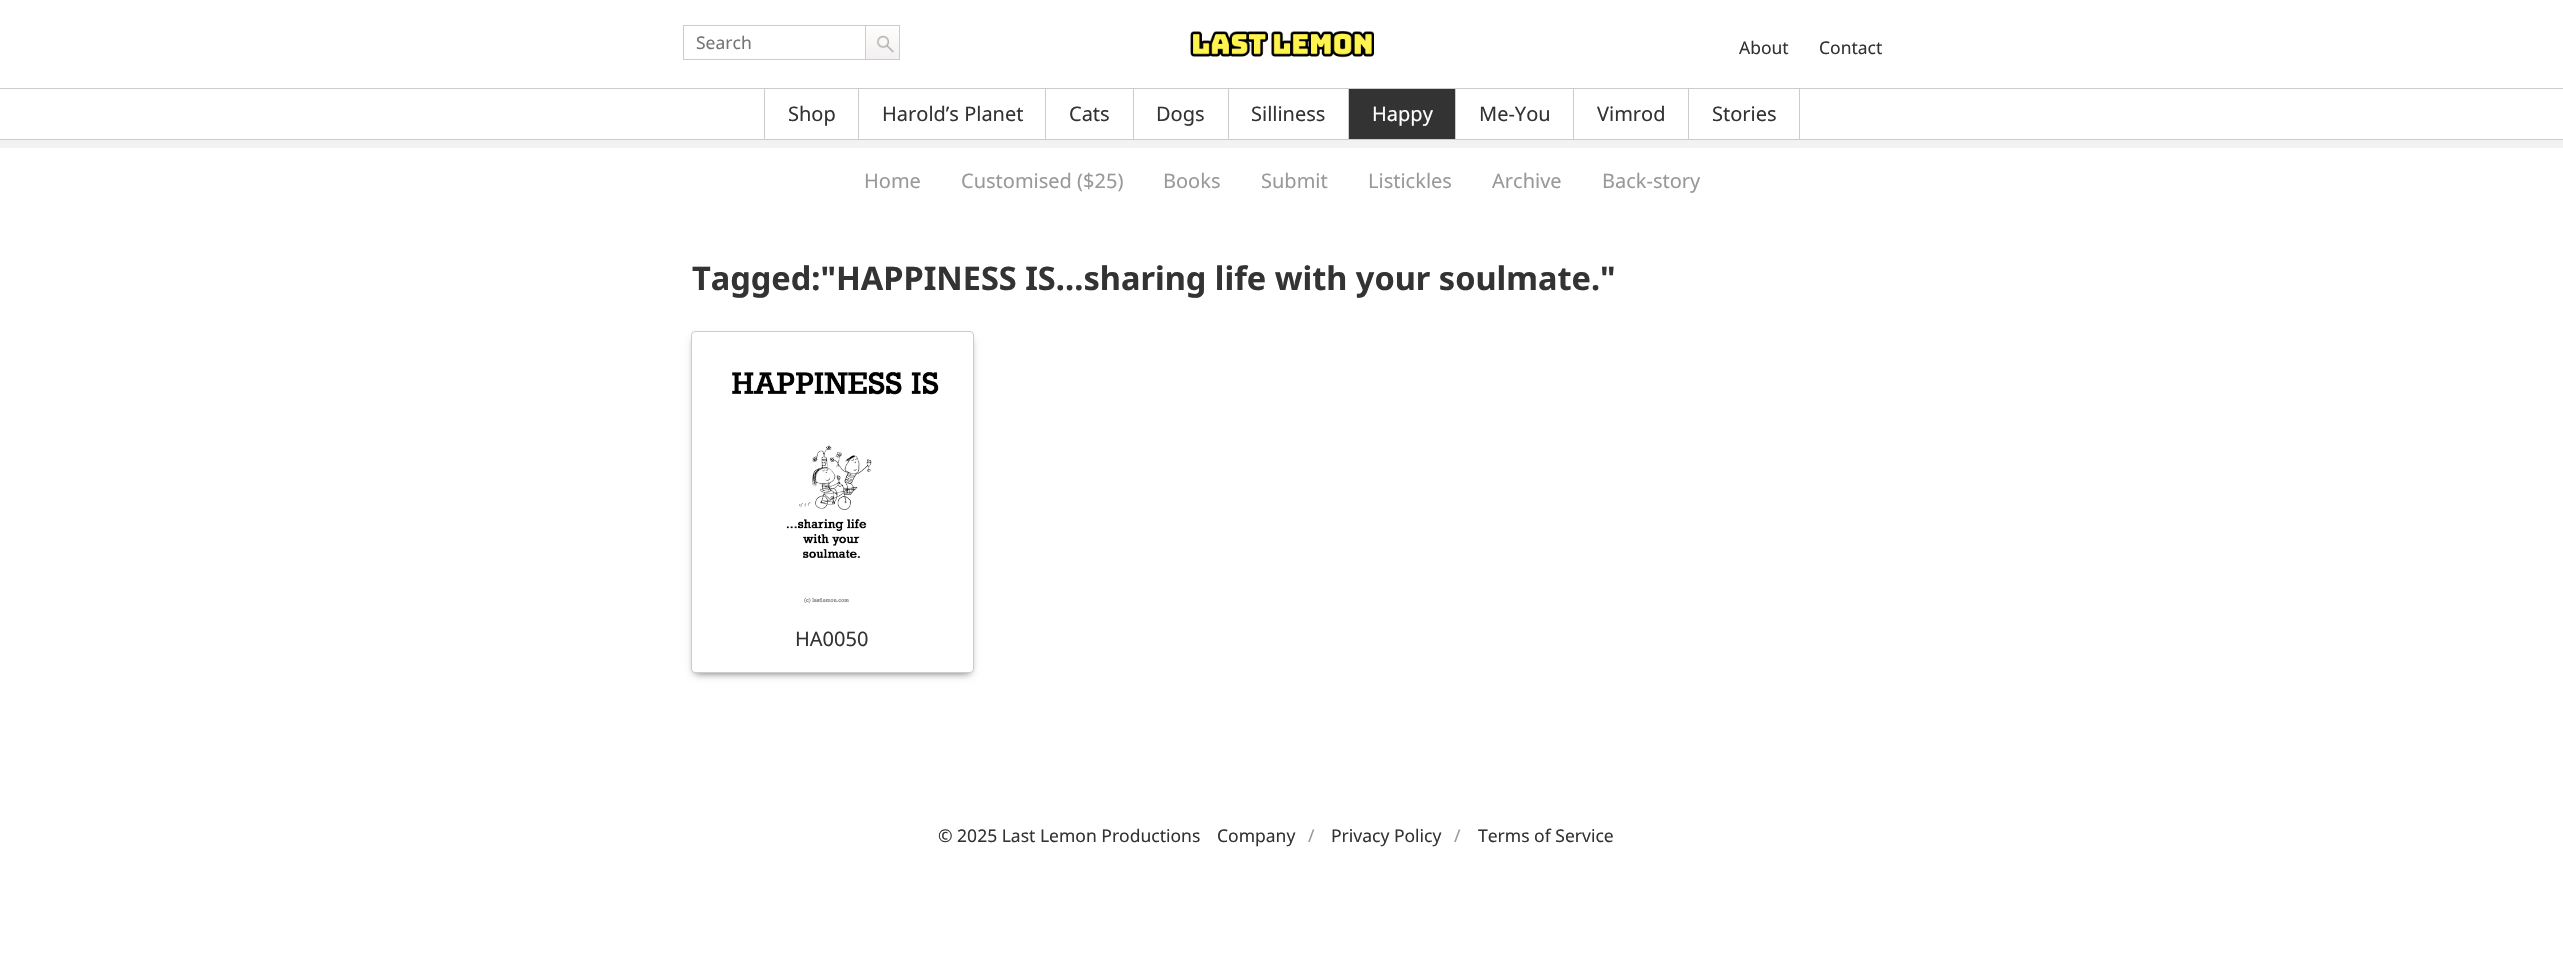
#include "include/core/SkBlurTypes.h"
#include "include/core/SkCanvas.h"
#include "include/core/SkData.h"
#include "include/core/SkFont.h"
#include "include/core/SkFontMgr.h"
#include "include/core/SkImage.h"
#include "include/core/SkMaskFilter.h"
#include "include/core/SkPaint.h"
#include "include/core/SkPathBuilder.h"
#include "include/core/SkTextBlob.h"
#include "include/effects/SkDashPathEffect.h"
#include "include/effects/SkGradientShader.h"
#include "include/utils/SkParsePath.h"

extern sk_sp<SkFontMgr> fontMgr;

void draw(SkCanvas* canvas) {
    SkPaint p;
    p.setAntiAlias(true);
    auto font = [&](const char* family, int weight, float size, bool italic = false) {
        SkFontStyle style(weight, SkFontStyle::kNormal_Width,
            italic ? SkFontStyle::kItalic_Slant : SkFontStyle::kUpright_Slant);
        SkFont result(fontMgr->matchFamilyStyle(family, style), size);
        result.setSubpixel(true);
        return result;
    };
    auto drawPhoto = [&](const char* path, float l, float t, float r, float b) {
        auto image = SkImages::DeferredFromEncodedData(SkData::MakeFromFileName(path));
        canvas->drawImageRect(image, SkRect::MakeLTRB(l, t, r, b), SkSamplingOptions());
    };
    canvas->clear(0xFFFFFFFF);
    {
        const struct { float l, t, r, b; SkColor color; } items[] = {
            {683, 25, 865, 26, 0xFFCCCCCC},
            {683, 59, 865, 60, 0xFFCCCCCC},
            {683, 25, 684, 60, 0xFFCCCCCC},
        };
        for (auto [l, t, r, b, color] : items) {
            p.setColor(color);
            canvas->drawRect(SkRect::MakeLTRB(l, t, r, b), p);
        }
    }
    auto font1 = font("Noto Sans", 400, 17.5f);
    p.setColor(0xFF757575);
    canvas->drawString("Search", 696, 49, font1, p);
    drawPhoto("media/1.png", 866, 29, 899, 59);
    p.setStyle(SkPaint::kStroke_Style);
    p.setStrokeWidth(1);
    p.setColor(0xFFCCCCCC);
    canvas->drawRect(SkRect::MakeLTRB(865.5f, 25.5f, 899.5f, 59.5f), p);
    drawPhoto("media/2.png", 1190, 31, 1374, 58);
    p.setStyle(SkPaint::kFill_Style);
    p.setColor(0xFF333333);
    canvas->drawString("About", 1739, 54, font1, p);
    canvas->drawString("Contact", 1819, 54, font1, p);
    p.setColor(0xFFF2F2F2);
    canvas->drawPath(SkPathBuilder().moveTo(-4, 88).lineTo(-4, 148).lineTo(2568, 148).lineTo(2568, 88).lineTo(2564, 88).lineTo(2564, 140).lineTo(0, 140).lineTo(0, 88).close().detach(), p);
    {
        const struct { float l, t, r, b; SkColor color; } items[] = {
            {0, 88, 2563, 89, 0xFFCCCCCC},
            {0, 139, 2563, 140, 0xFFCCCCCC},
            {858, 89, 859, 139, 0xFFCCCCCC},
            {764, 89, 765, 139, 0xFFCCCCCC},
        };
        for (auto [l, t, r, b, color] : items) {
            p.setColor(color);
            canvas->drawRect(SkRect::MakeLTRB(l, t, r, b), p);
        }
    }
    auto font2 = font("Noto Sans", 400, 20);
    p.setColor(0xFF333333);
    canvas->drawString("Shop", 788, 121, font2, p);
    p.setColor(0xFFCCCCCC);
    canvas->drawRect(SkRect::MakeLTRB(1045, 89, 1046, 139), p);
    p.setColor(0xFF333333);
    canvas->drawString("Harold’s Planet", 882, 121, font2, p);
    p.setColor(0xFFCCCCCC);
    canvas->drawRect(SkRect::MakeLTRB(1133, 89, 1134, 139), p);
    p.setColor(0xFF333333);
    canvas->drawString("Cats", 1069, 121, font2, p);
    p.setColor(0xFFCCCCCC);
    canvas->drawRect(SkRect::MakeLTRB(1228, 89, 1229, 139), p);
    p.setColor(0xFF333333);
    canvas->drawString("Dogs", 1156, 121, font2, p);
    p.setColor(0xFFCCCCCC);
    canvas->drawRect(SkRect::MakeLTRB(1348, 89, 1349, 139), p);
    p.setColor(0xFF333333);
    canvas->drawString("Silliness", 1251, 121, font2, p);
    canvas->drawRect(SkRect::MakeLTRB(1349, 89, 1455, 139), p);
    p.setColor(0xFFCCCCCC);
    canvas->drawRect(SkRect::MakeLTRB(1455, 89, 1456, 139), p);
    p.setColor(0xFFFFFFFF);
    canvas->drawString("Happy", 1372, 121, font2, p);
    p.setColor(0xFFCCCCCC);
    canvas->drawRect(SkRect::MakeLTRB(1573, 89, 1574, 139), p);
    p.setColor(0xFF333333);
    canvas->drawString("Me-You", 1479, 121, font2, p);
    p.setColor(0xFFCCCCCC);
    canvas->drawRect(SkRect::MakeLTRB(1688, 89, 1689, 139), p);
    p.setColor(0xFF333333);
    canvas->drawString("Vimrod", 1597, 121, font2, p);
    p.setColor(0xFFCCCCCC);
    canvas->drawRect(SkRect::MakeLTRB(1799, 89, 1800, 139), p);
    p.setColor(0xFF333333);
    canvas->drawString("Stories", 1712, 121, font2, p);
    p.setColor(0xFF999999);
    {
        const struct { const char* s; float x, y; } items[] = {
            {"Home", 864, 188},
            {"Customised ($25)", 961, 188},
            {"Books", 1163, 188},
            {"Submit", 1261, 188},
            {"Listickles", 1368, 188},
            {"Archive", 1492, 188},
            {"Back-story", 1602, 188},
        };
        for (auto [s, x, y] : items) {
            canvas->drawString(s, x, y, font2, p);
        }
    }
    auto font3 = font("Noto Sans", 700, 32.5f);
    p.setColor(0xFF333333);
    canvas->drawString("Tagged:\"HAPPINESS IS…sharing life with your soulmate.\"", 692, 290, font3, p);
    p.setColor(0xFF666666);
    p.setMaskFilter(SkMaskFilter::MakeBlur(kNormal_SkBlurStyle, 4));
    canvas->drawRect(SkRect::MakeLTRB(695, 339, 970, 673), p);
    p.setMaskFilter(nullptr);
    p.setColor(0xFFFFFFFF);
    canvas->drawRoundRect(SkRect::MakeLTRB(691.5f, 331.5f, 973.5f, 672.5f), 3.5f, 3.5f, p);
    p.setStyle(SkPaint::kStroke_Style);
    p.setColor(0xFFCCCCCC);
    canvas->drawRoundRect(SkRect::MakeLTRB(691.5f, 331.5f, 973.5f, 672.5f), 3.5f, 3.5f, p);
    drawPhoto("media/3.png", 732, 371, 939, 604);
    p.setStyle(SkPaint::kFill_Style);
    p.setColor(0xFF333333);
    canvas->drawString("HA0050", 795, 646, font2, p);
    canvas->drawString("© 2025 Last Lemon Productions", 938, 842, font1, p);
    canvas->drawString("Company", 1217, 842, font1, p);
    p.setColor(0xFF999999);
    canvas->drawString("/", 1308, 842, font1, p);
    p.setColor(0xFF333333);
    canvas->drawString("Privacy Policy", 1331, 842, font1, p);
    p.setColor(0xFF999999);
    canvas->drawString("/", 1454, 842, font1, p);
    p.setColor(0xFF333333);
    canvas->drawString("Terms of Service", 1478, 842, font1, p);
}
